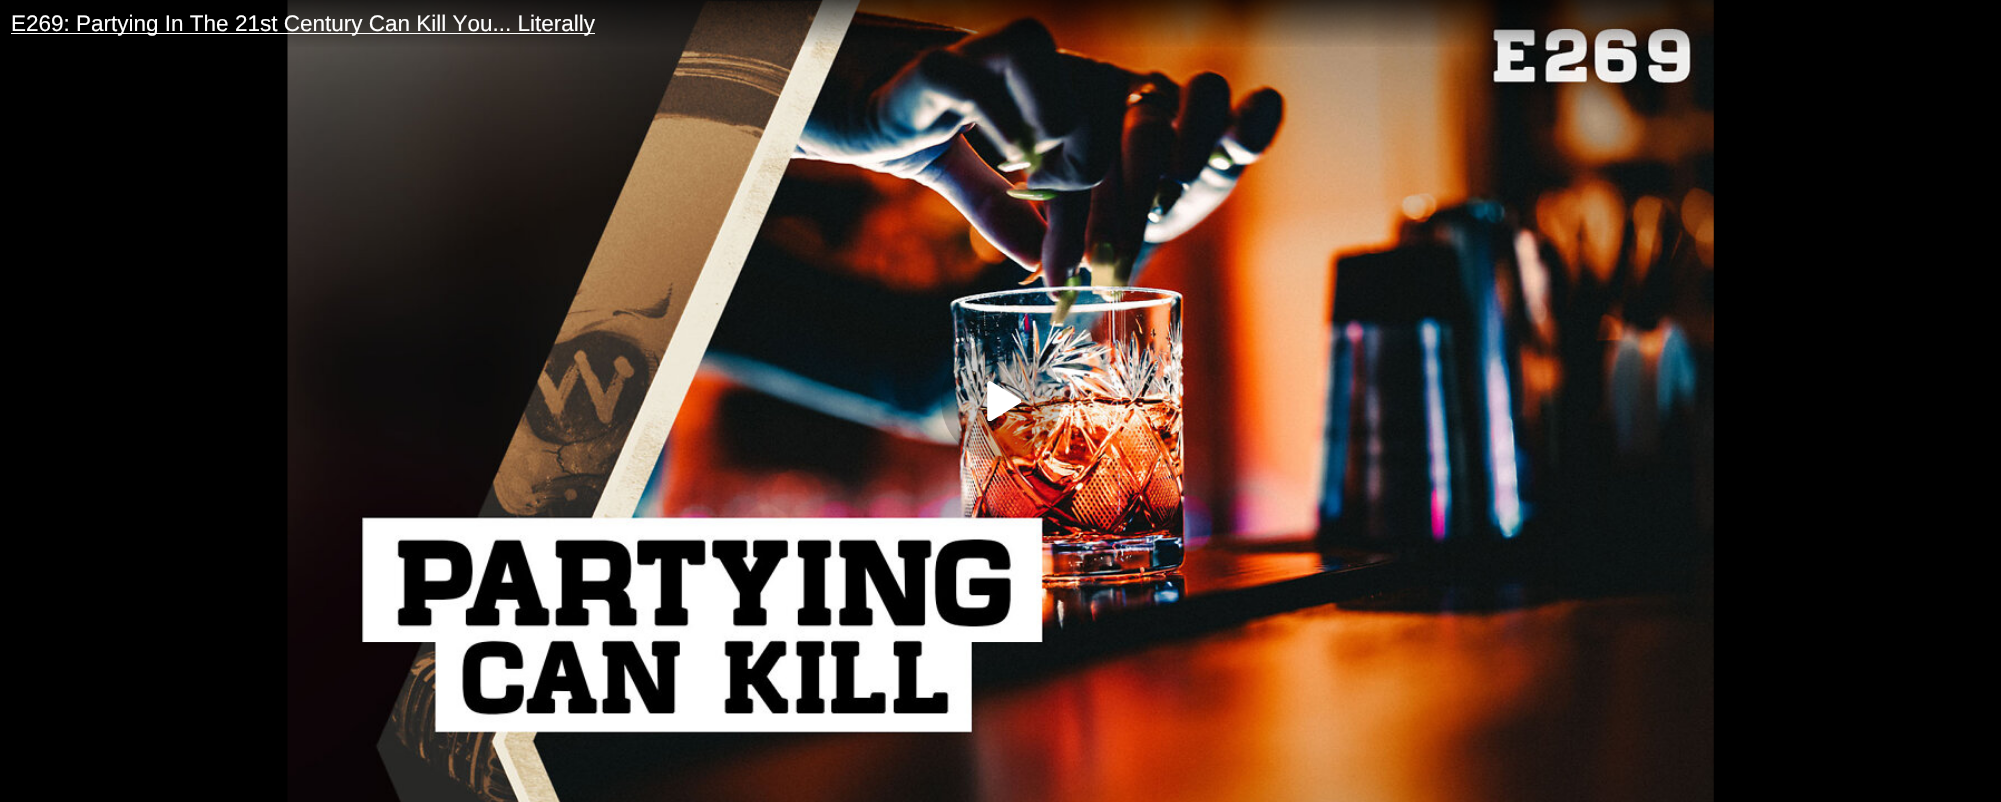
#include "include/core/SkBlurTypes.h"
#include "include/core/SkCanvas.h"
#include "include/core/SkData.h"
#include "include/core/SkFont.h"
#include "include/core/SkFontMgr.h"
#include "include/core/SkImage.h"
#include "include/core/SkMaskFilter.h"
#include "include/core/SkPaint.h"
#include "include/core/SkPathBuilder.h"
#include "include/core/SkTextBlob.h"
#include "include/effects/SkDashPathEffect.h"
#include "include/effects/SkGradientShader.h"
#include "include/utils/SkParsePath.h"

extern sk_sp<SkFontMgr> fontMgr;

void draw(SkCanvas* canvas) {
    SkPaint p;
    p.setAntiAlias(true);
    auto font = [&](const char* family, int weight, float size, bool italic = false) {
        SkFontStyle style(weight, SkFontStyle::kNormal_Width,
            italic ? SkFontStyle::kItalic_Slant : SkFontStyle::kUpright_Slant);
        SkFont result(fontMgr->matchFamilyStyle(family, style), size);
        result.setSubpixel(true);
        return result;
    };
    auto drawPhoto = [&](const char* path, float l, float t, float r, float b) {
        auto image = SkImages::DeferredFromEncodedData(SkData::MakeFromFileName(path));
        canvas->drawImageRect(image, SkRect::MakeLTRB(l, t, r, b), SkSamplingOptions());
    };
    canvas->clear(0xFF000000);
    drawPhoto("media/1.png", 287, 0, 1714, 802);
    {
        const SkColor colors[] = {0xB3000000, 0x00000000};
        const float stops[] = {0, 1};
        const SkPoint ends[] = {{1001, 0}, {1001, 49}};
        p.setShader(SkGradientShader::MakeLinear(ends, colors, stops, 2, SkTileMode::kClamp));
        p.setAlpha(255);
    }
    canvas->drawRect(SkRect::MakeLTRB(287, 0, 1714, 47), p);
    p.setShader(nullptr);
    p.setColor(0xFFFFFFFF);
    canvas->drawRect(SkRect::MakeLTRB(11, 33, 595, 34), p);
    auto font1 = font("Liberation Sans", 400, 22.5f);
    canvas->drawString("E269: Partying In The 21st Century Can Kill You... Literally", 11, 31, font1, p);
    p.setColor(0x33000000);
    canvas->drawCircle(1001, 401, 60, p);
    p.setColor(0xFFFFFFFF);
    canvas->drawPath(SkPathBuilder().moveTo(1018.5f, 401).lineTo(990, 384).lineTo(990, 418.5f).close().detach(), p);
    canvas->save();
    canvas->clipRect(SkRect::MakeLTRB(981, 381, 1021, 421));
    p.setStyle(SkPaint::kStroke_Style);
    p.setStrokeWidth(5.5f);
    p.setStrokeJoin(SkPaint::kRound_Join);
    canvas->drawPath(SkPathBuilder().moveTo(1018.5f, 401).lineTo(990, 384).lineTo(990, 418.5f).close().detach(), p);
    canvas->restore();
}
